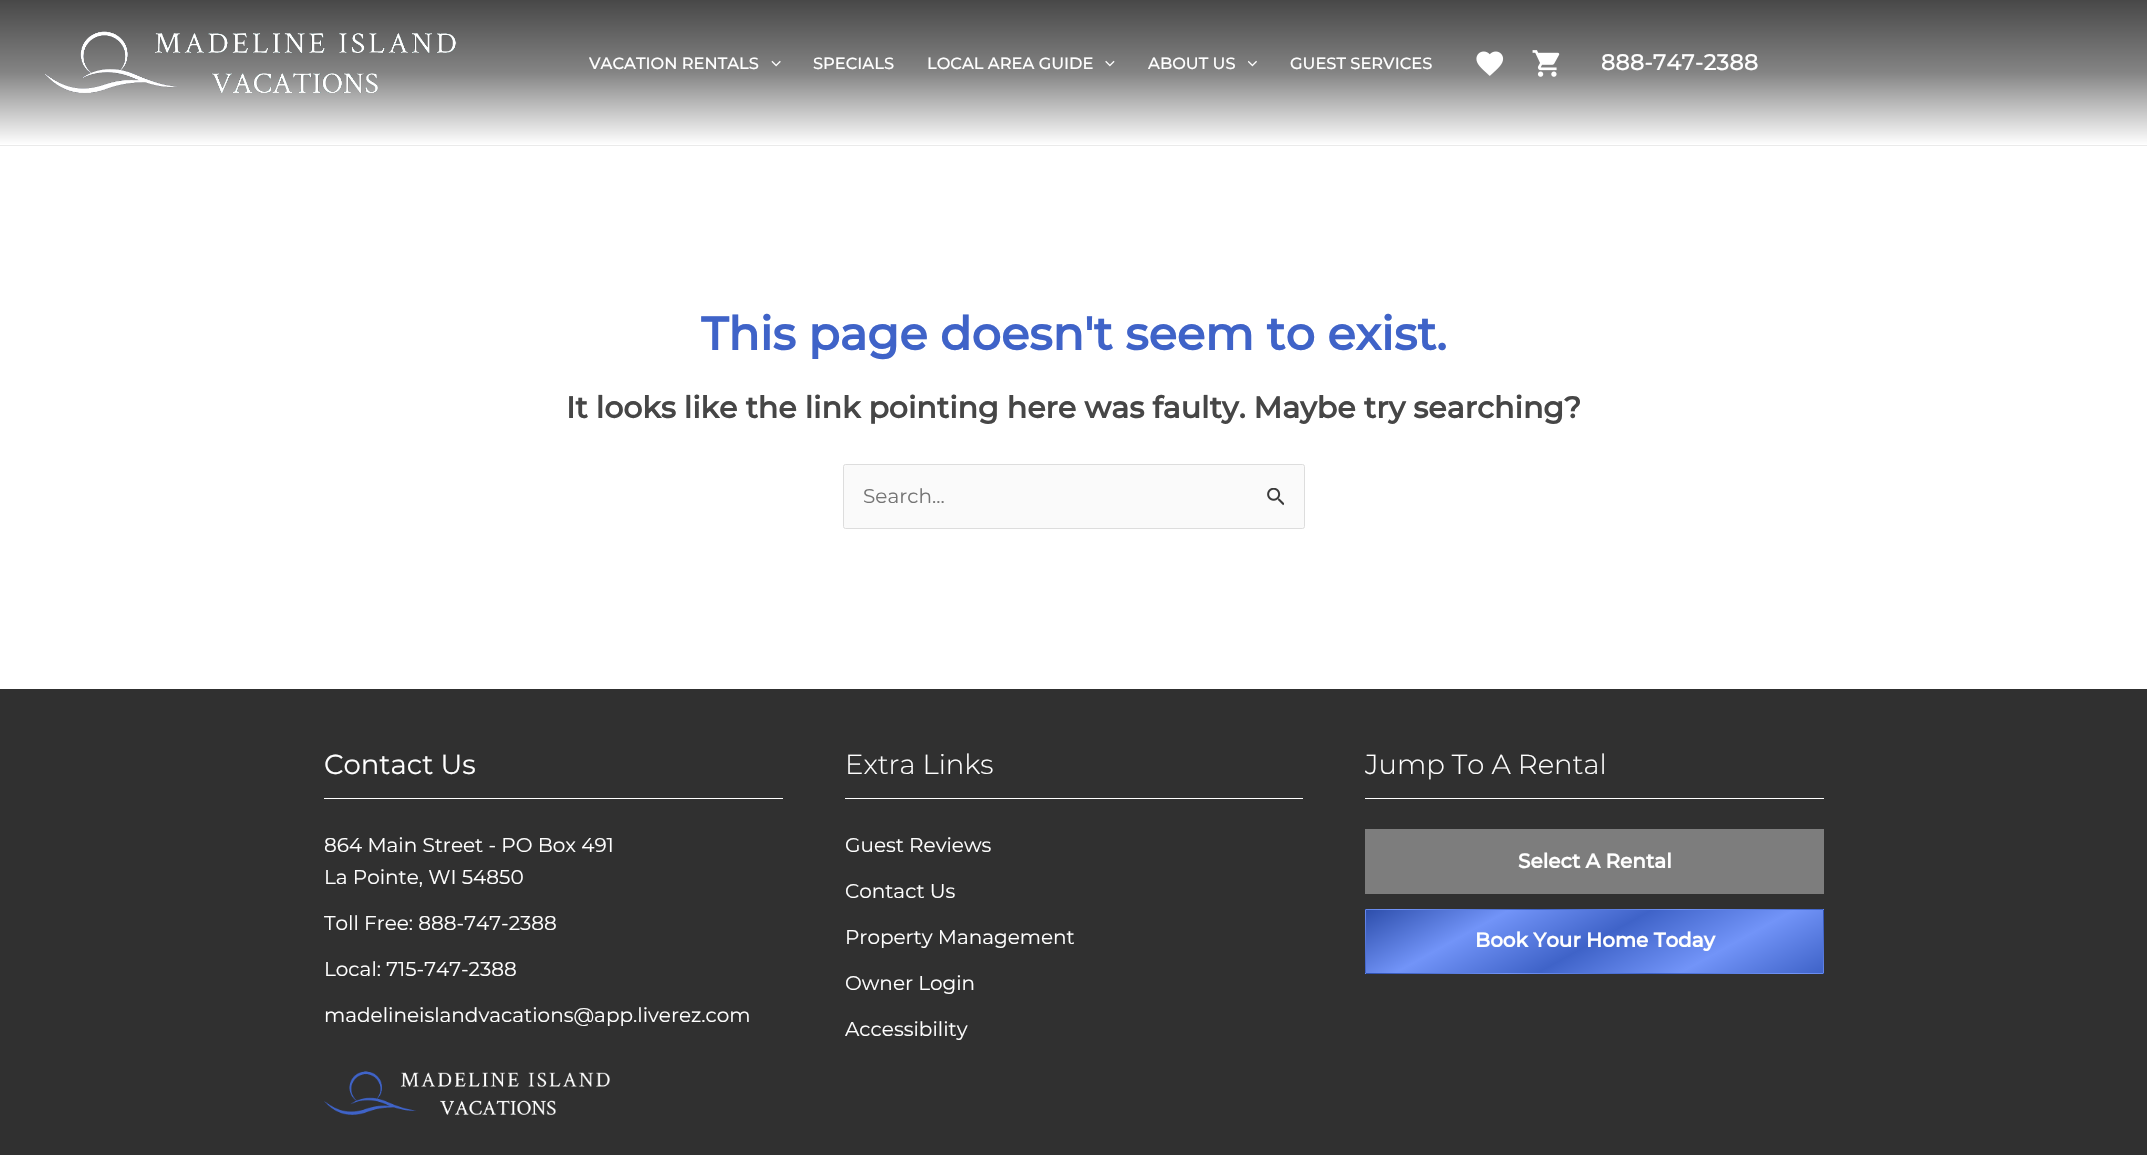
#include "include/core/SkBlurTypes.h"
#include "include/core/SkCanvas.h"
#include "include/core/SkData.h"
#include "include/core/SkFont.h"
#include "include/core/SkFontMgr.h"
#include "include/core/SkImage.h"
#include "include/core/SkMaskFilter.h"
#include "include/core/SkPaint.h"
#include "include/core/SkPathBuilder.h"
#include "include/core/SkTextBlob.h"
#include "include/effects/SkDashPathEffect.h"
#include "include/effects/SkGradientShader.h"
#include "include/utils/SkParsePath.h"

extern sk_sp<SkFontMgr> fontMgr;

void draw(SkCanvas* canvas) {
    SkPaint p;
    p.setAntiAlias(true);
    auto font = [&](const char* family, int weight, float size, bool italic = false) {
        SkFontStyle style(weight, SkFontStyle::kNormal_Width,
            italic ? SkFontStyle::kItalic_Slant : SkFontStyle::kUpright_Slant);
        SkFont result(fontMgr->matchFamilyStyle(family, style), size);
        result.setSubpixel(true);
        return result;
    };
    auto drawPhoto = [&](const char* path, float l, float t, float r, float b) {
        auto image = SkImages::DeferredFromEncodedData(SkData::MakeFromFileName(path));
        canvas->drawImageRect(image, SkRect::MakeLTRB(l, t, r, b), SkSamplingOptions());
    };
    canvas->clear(0xFFFFFFFF);
    {
        const SkColor colors[] = {0xFF484848, 0xFF848484, 0xFFFFFFFF};
        const float stops[] = {0, 0.5f, 1};
        const SkPoint ends[] = {{1074, 0}, {1074, 145}};
        p.setShader(SkGradientShader::MakeLinear(ends, colors, stops, 3, SkTileMode::kClamp));
        p.setAlpha(255);
    }
    canvas->drawRect(SkRect::MakeLTRB(0, 0, 2147, 144), p);
    p.setShader(nullptr);
    p.setColor(0xFFEAEAEA);
    canvas->drawRect(SkRect::MakeLTRB(0, 145, 2147, 146), p);
    drawPhoto("media/1.png", 45, 31, 457, 93);
    auto font1 = font("Montserrat", 500, 16.25f);
    p.setColor(0xFFFFFFFF);
    canvas->drawString("VACATION RENTALS", 589, 69, font1, p);
    drawPhoto("media/2.png", 771, 60, 781, 67);
    canvas->drawString("SPECIALS", 813, 69, font1, p);
    canvas->drawString("LOCAL AREA GUIDE", 927, 69, font1, p);
    drawPhoto("media/3.png", 1105, 60, 1115, 67);
    canvas->drawString("ABOUT US", 1148, 69, font1, p);
    drawPhoto("media/4.png", 1248, 60, 1257, 67);
    canvas->drawString("GUEST SERVICES", 1290, 69, font1, p);
    drawPhoto("media/5.png", 1476, 51, 1504, 76);
    drawPhoto("media/6.png", 1532, 50, 1560, 77);
    auto font2 = font("Montserrat", 500, 22.5f);
    canvas->drawString("888-747-2388", 1601, 70, font2, p);
    auto font3 = font("Montserrat", 700, 46.25f);
    p.setColor(0xFF3F63C8);
    canvas->drawString("This page doesn't seem to exist.", 701, 350, font3, p);
    auto font4 = font("Montserrat", 700, 30);
    p.setColor(0xFF464646);
    canvas->drawString("It looks like the link pointing here was faulty. Maybe try searching?", 566, 418, font4, p);
    p.setColor(0xFFFAFAFA);
    canvas->drawRoundRect(SkRect::MakeLTRB(843.5f, 464.5f, 1304.5f, 528.5f), 2, 2, p);
    p.setStyle(SkPaint::kStroke_Style);
    p.setStrokeWidth(1);
    p.setColor(0xFFDDDDDD);
    canvas->drawRoundRect(SkRect::MakeLTRB(843.5f, 464.5f, 1304.5f, 528.5f), 2, 2, p);
    auto font5 = font("Montserrat", 400, 20);
    p.setStyle(SkPaint::kFill_Style);
    p.setColor(0xFF757575);
    canvas->drawString("Search...", 863, 503, font5, p);
    drawPhoto("media/7.png", 1267, 488, 1284, 506);
    p.setColor(0xFF303030);
    canvas->drawRect(SkRect::MakeLTRB(0, 689, 2147, 1155), p);
    auto font6 = font("Montserrat", 400, 27.5f);
    p.setColor(0xFFFFFFFF);
    canvas->drawString("Contact Us", 324, 774, font6, p);
    canvas->drawRect(SkRect::MakeLTRB(324, 798, 783, 799), p);
    {
        const struct { const char* s; float x, y; } items[] = {
            {"864 Main Street - PO Box 491", 324, 852},
            {"La Pointe, WI 54850", 324, 884},
            {"Toll Free: 888-747-2388", 324, 930},
            {"Local: 715-747-2388", 324, 976},
            {"madelineislandvacations@app.liverez.com", 324, 1022},
        };
        for (auto [s, x, y] : items) {
            canvas->drawString(s, x, y, font5, p);
        }
    }
    drawPhoto("media/8.png", 324, 1071, 610, 1115);
    auto font7 = font("Montserrat", 300, 27.5f);
    canvas->drawString("Extra Links", 845, 774, font7, p);
    canvas->drawRect(SkRect::MakeLTRB(845, 798, 1303, 799), p);
    {
        const struct { const char* s; float x, y; } items[] = {
            {"Guest Reviews", 845, 852},
            {"Contact Us", 845, 898},
            {"Property Management", 845, 944},
            {"Owner Login", 845, 990},
            {"Accessibility", 845, 1036},
        };
        for (auto [s, x, y] : items) {
            canvas->drawString(s, x, y, font5, p);
        }
    }
    canvas->drawString("Jump To A Rental", 1365, 774, font7, p);
    canvas->drawRect(SkRect::MakeLTRB(1365, 798, 1824, 799), p);
    p.setColor(0xFF7D7D7D);
    canvas->drawRect(SkRect::MakeLTRB(1365, 829, 1824, 894), p);
    auto font8 = font("Montserrat", 700, 20);
    p.setColor(0xFFFFFFFF);
    canvas->drawString("Select A Rental", 1518, 868, font8, p);
    {
        const SkColor colors[] = {0xFF3F63C8, 0xFF7294F8, 0xFF3F63C8, 0xFF7294F8, 0xFF2E4FAC};
        const float stops[] = {0, 0.25f, 0.5f, 0.75f, 1};
        const SkPoint ends[] = {{1205, 999}, {1071, 758}};
        p.setShader(SkGradientShader::MakeLinear(ends, colors, stops, 5, SkTileMode::kClamp));
        p.setAlpha(255);
    }
    canvas->drawRect(SkRect::MakeLTRB(1365, 909, 1366, 910), p);
    {
        const SkColor colors[] = {0xFF3F63C8, 0xFF7294F8, 0xFF3F63C8, 0xFF7294F8, 0xFF2E4FAC};
        const float stops[] = {0, 0.25f, 0.5f, 0.75f, 1};
        const SkPoint ends[] = {{1661, 999}, {1528, 758}};
        p.setShader(SkGradientShader::MakeLinear(ends, colors, stops, 5, SkTileMode::kClamp));
        p.setAlpha(255);
    }
    canvas->drawRect(SkRect::MakeLTRB(1366, 909, 1823, 910), p);
    {
        const SkColor colors[] = {0xFF3F63C8, 0xFF7294F8, 0xFF3F63C8, 0xFF7294F8, 0xFF2E4FAC};
        const float stops[] = {0, 0.25f, 0.5f, 0.75f, 1};
        const SkPoint ends[] = {{2117, 999}, {1984, 758}};
        p.setShader(SkGradientShader::MakeLinear(ends, colors, stops, 5, SkTileMode::kClamp));
        p.setAlpha(255);
    }
    canvas->drawRect(SkRect::MakeLTRB(1823, 909, 1824, 910), p);
    {
        const SkColor colors[] = {0xFF3F63C8, 0xFF7294F8, 0xFF3F63C8, 0xFF7294F8, 0xFF2E4FAC};
        const float stops[] = {0, 0.25f, 0.5f, 0.75f, 1};
        const SkPoint ends[] = {{1205, 1062}, {1071, 821}};
        p.setShader(SkGradientShader::MakeLinear(ends, colors, stops, 5, SkTileMode::kClamp));
        p.setAlpha(255);
    }
    canvas->drawRect(SkRect::MakeLTRB(1365, 910, 1366, 973), p);
    {
        const SkColor colors[] = {0xFF3F63C8, 0xFF7294F8, 0xFF3F63C8, 0xFF7294F8, 0xFF2E4FAC};
        const float stops[] = {0, 0.25f, 0.5f, 0.75f, 1};
        const SkPoint ends[] = {{1661, 1062}, {1528, 821}};
        p.setShader(SkGradientShader::MakeLinear(ends, colors, stops, 5, SkTileMode::kClamp));
        p.setAlpha(255);
    }
    canvas->drawRect(SkRect::MakeLTRB(1366, 910, 1823, 973), p);
    {
        const SkColor colors[] = {0xFF3F63C8, 0xFF7294F8, 0xFF3F63C8, 0xFF7294F8, 0xFF2E4FAC};
        const float stops[] = {0, 0.25f, 0.5f, 0.75f, 1};
        const SkPoint ends[] = {{2117, 1062}, {1984, 821}};
        p.setShader(SkGradientShader::MakeLinear(ends, colors, stops, 5, SkTileMode::kClamp));
        p.setAlpha(255);
    }
    canvas->drawRect(SkRect::MakeLTRB(1823, 910, 1824, 973), p);
    {
        const SkColor colors[] = {0xFF3F63C8, 0xFF7294F8, 0xFF3F63C8, 0xFF7294F8, 0xFF2E4FAC};
        const float stops[] = {0, 0.25f, 0.5f, 0.75f, 1};
        const SkPoint ends[] = {{1205, 1124}, {1071, 883}};
        p.setShader(SkGradientShader::MakeLinear(ends, colors, stops, 5, SkTileMode::kClamp));
        p.setAlpha(255);
    }
    canvas->drawRect(SkRect::MakeLTRB(1365, 973, 1366, 974), p);
    {
        const SkColor colors[] = {0xFF3F63C8, 0xFF7294F8, 0xFF3F63C8, 0xFF7294F8, 0xFF2E4FAC};
        const float stops[] = {0, 0.25f, 0.5f, 0.75f, 1};
        const SkPoint ends[] = {{1661, 1124}, {1528, 883}};
        p.setShader(SkGradientShader::MakeLinear(ends, colors, stops, 5, SkTileMode::kClamp));
        p.setAlpha(255);
    }
    canvas->drawRect(SkRect::MakeLTRB(1366, 973, 1823, 974), p);
    {
        const SkColor colors[] = {0xFF3F63C8, 0xFF7294F8, 0xFF3F63C8, 0xFF7294F8, 0xFF2E4FAC};
        const float stops[] = {0, 0.25f, 0.5f, 0.75f, 1};
        const SkPoint ends[] = {{2117, 1124}, {1984, 883}};
        p.setShader(SkGradientShader::MakeLinear(ends, colors, stops, 5, SkTileMode::kClamp));
        p.setAlpha(255);
    }
    canvas->drawRect(SkRect::MakeLTRB(1823, 973, 1824, 974), p);
    p.setShader(nullptr);
    p.setColor(0xFFFFFFFF);
    canvas->drawString("Book Your Home Today", 1475, 947, font8, p);
}
